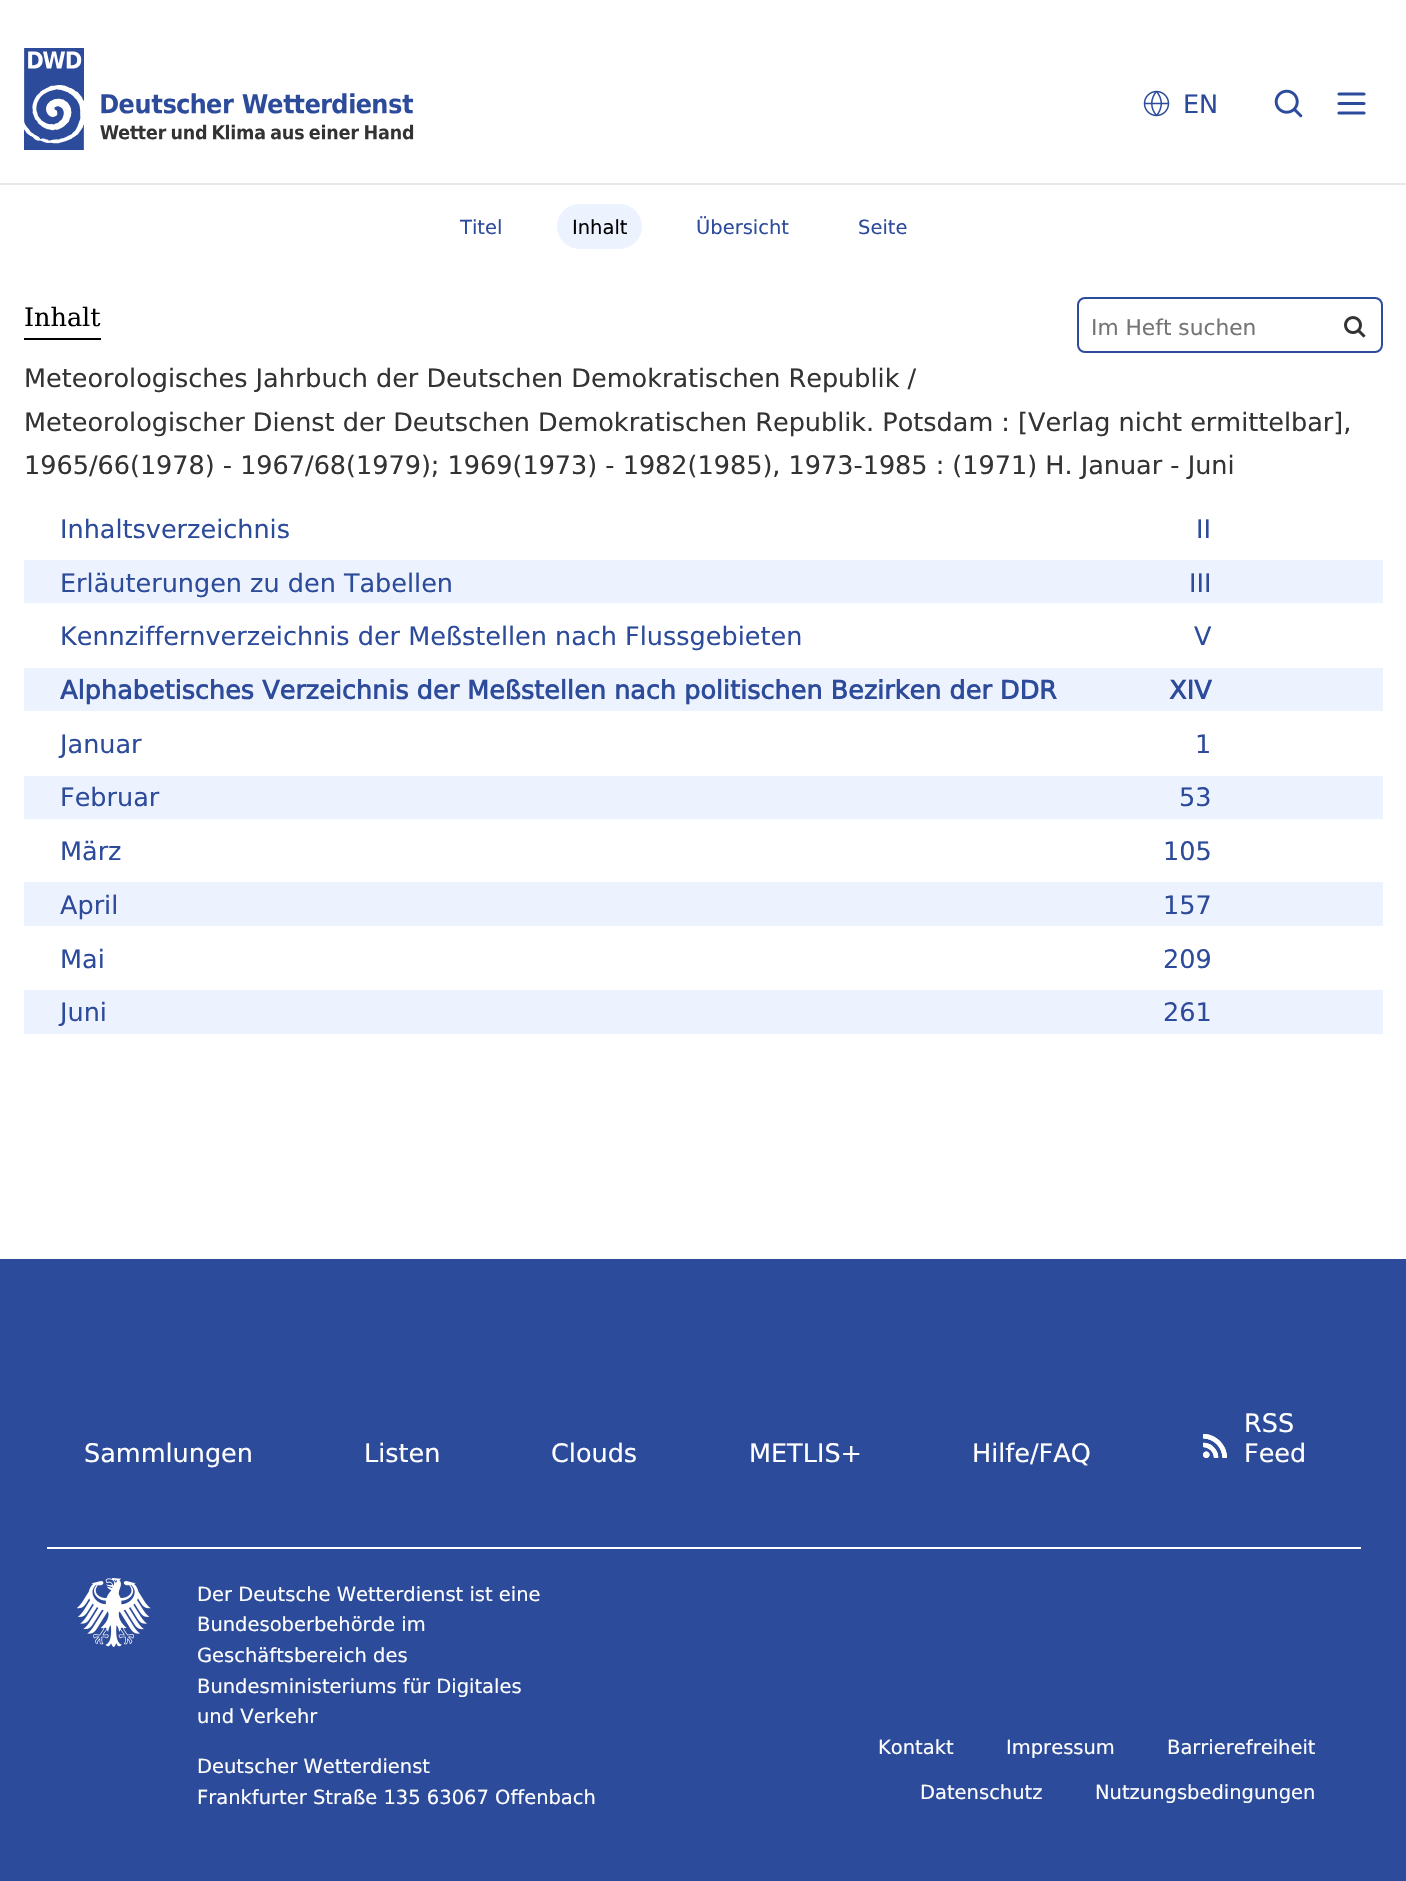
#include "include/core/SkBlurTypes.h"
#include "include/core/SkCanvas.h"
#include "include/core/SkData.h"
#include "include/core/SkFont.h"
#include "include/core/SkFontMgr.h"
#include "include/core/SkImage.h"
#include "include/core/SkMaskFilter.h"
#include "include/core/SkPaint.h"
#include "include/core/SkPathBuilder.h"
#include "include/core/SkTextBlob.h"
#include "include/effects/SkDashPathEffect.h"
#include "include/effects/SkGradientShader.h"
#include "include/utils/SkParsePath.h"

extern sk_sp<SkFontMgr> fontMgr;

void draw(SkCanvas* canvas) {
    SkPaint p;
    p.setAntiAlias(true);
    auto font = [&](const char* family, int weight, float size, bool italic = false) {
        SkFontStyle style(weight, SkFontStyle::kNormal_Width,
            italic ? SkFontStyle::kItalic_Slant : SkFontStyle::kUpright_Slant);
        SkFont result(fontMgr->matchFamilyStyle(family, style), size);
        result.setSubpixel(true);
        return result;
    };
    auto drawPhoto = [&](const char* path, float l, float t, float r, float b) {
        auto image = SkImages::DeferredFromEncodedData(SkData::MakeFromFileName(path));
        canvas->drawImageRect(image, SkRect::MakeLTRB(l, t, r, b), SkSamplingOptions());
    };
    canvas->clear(0xFFFFFFFF);
    p.setColor(0xFFE8E8E8);
    canvas->drawRect(SkRect::MakeLTRB(0, 183, 1406, 185), p);
    drawPhoto("media/1.png", 24, 48, 414, 150);
    drawPhoto("media/2.png", 1143, 90, 1170, 117);
    auto font1 = font("DejaVu Sans", 400, 25.5f);
    p.setColor(0xFF2D4B9B);
    canvas->drawString("EN", 1183, 113, font1, p);
    drawPhoto("media/3.png", 1274, 89, 1303, 118);
    p.setStyle(SkPaint::kStroke_Style);
    p.setStrokeWidth(3.2f);
    p.setStrokeCap(SkPaint::kRound_Cap);
    p.setStrokeJoin(SkPaint::kRound_Join);
    canvas->drawPath(SkPathBuilder().moveTo(1339, 103.5f).lineTo(1364, 103.5f).moveTo(1339, 94).lineTo(1364, 94).moveTo(1339, 113).lineTo(1364, 113).detach(), p);
    auto font2 = font("DejaVu Sans", 400, 19.5f);
    p.setStyle(SkPaint::kFill_Style);
    canvas->drawString("Titel", 460, 234, font2, p);
    p.setColor(0xFFEDF2FF);
    canvas->drawRoundRect(SkRect::MakeLTRB(557, 204, 642, 249), 22.5f, 22.5f, p);
    p.setColor(0xFF000000);
    canvas->drawString("Inhalt", 572, 234, font2, p);
    p.setColor(0xFF2D4B9B);
    canvas->drawString("Übersicht", 696, 234, font2, p);
    canvas->drawString("Seite", 858, 234, font2, p);
    p.setColor(0xFF000000);
    canvas->drawRect(SkRect::MakeLTRB(24, 338, 101, 340), p);
    auto font3 = font("DejaVu Serif", 400, 25.5f);
    canvas->drawString("Inhalt", 24, 326, font3, p);
    p.setStyle(SkPaint::kStroke_Style);
    p.setStrokeWidth(2);
    p.setStrokeCap(SkPaint::kButt_Cap);
    p.setStrokeJoin(SkPaint::kMiter_Join);
    p.setColor(0xFF2D4B9B);
    canvas->drawRoundRect(SkRect::MakeLTRB(1078, 298, 1382, 352), 7, 7, p);
    auto font4 = font("DejaVu Sans", 400, 21.75f);
    p.setStyle(SkPaint::kFill_Style);
    p.setColor(0xFF757575);
    canvas->drawString("Im Heft suchen", 1091, 335, font4, p);
    drawPhoto("media/4.png", 1344, 316, 1366, 338);
    p.setColor(0xFF333333);
    {
        const struct { const char* s; float x, y; } items[] = {
            {"Meteorologisches Jahrbuch der Deutschen Demokratischen Republik /", 24, 387},
            {"Meteorologischer Dienst der Deutschen Demokratischen Republik. Potsdam : [Verlag nicht ermittelbar],", 24, 431},
            {"1965/66(1978) - 1967/68(1979); 1969(1973) - 1982(1985), 1973-1985 : (1971) H. Januar - Juni", 24, 474},
        };
        for (auto [s, x, y] : items) {
            canvas->drawString(s, x, y, font1, p);
        }
    }
    p.setColor(0xFF2D4B9B);
    canvas->drawString("Inhaltsverzeichnis", 60, 538, font1, p);
    canvas->drawString("II", 1196, 538, font1, p);
    p.setColor(0xFFEDF2FF);
    canvas->drawRect(SkRect::MakeLTRB(24, 560, 1383, 603), p);
    p.setColor(0xFF2D4B9B);
    {
        const struct { const char* s; float x, y; } items[] = {
            {"Erläuterungen zu den Tabellen", 60, 592},
            {"III", 1189, 592},
            {"Kennziffernverzeichnis der Meßstellen nach Flussgebieten", 60, 645},
            {"V", 1194, 645},
        };
        for (auto [s, x, y] : items) {
            canvas->drawString(s, x, y, font1, p);
        }
    }
    p.setColor(0xFFEDF2FF);
    canvas->drawRect(SkRect::MakeLTRB(24, 668, 1383, 711), p);
    auto font5 = font("DejaVu Sans", 700, 25.5f);
    p.setColor(0xFF2D4B9B);
    canvas->drawString("Alphabetisches Verzeichnis der Meßstellen nach politischen Bezirken der DDR", 60, 699, font5, p);
    canvas->drawString("XIV", 1169, 699, font5, p);
    canvas->drawString("Januar", 60, 753, font1, p);
    canvas->drawString("1", 1195, 753, font1, p);
    p.setColor(0xFFEDF2FF);
    canvas->drawRect(SkRect::MakeLTRB(24, 776, 1383, 819), p);
    p.setColor(0xFF2D4B9B);
    {
        const struct { const char* s; float x, y; } items[] = {
            {"Februar", 60, 806},
            {"53", 1179, 806},
            {"März", 60, 860},
            {"105", 1163, 860},
        };
        for (auto [s, x, y] : items) {
            canvas->drawString(s, x, y, font1, p);
        }
    }
    p.setColor(0xFFEDF2FF);
    canvas->drawRect(SkRect::MakeLTRB(24, 882, 1383, 926), p);
    p.setColor(0xFF2D4B9B);
    {
        const struct { const char* s; float x, y; } items[] = {
            {"April", 60, 914},
            {"157", 1163, 914},
            {"Mai", 60, 968},
            {"209", 1163, 968},
        };
        for (auto [s, x, y] : items) {
            canvas->drawString(s, x, y, font1, p);
        }
    }
    p.setColor(0xFFEDF2FF);
    canvas->drawRect(SkRect::MakeLTRB(24, 990, 1383, 1034), p);
    p.setColor(0xFF2D4B9B);
    canvas->drawString("Juni", 60, 1021, font1, p);
    canvas->drawString("261", 1163, 1021, font1, p);
    canvas->drawRect(SkRect::MakeLTRB(0, 1259, 1406, 1881), p);
    p.setColor(0xFFFFFFFF);
    {
        const struct { const char* s; float x, y; } items[] = {
            {"Sammlungen", 84, 1462},
            {"Listen", 364, 1462},
            {"Clouds", 551, 1462},
            {"METLIS+", 749, 1462},
            {"Hilfe/FAQ", 972, 1462},
        };
        for (auto [s, x, y] : items) {
            canvas->drawString(s, x, y, font1, p);
        }
    }
    drawPhoto("media/5.png", 1203, 1434, 1227, 1458);
    canvas->drawString("RSS", 1244, 1432, font1, p);
    canvas->drawString("Feed", 1244, 1462, font1, p);
    canvas->drawRect(SkRect::MakeLTRB(47, 1547, 1361, 1549), p);
    drawPhoto("media/6.png", 77, 1578, 151, 1647);
    {
        const struct { const char* s; float x, y; } items[] = {
            {"Der Deutsche Wetterdienst ist eine", 197, 1601},
            {"Bundesoberbehörde im", 197, 1631},
            {"Geschäftsbereich des", 197, 1662},
            {"Bundesministeriums für Digitales", 197, 1693},
            {"und Verkehr", 197, 1723},
            {"Deutscher Wetterdienst", 197, 1773},
            {"Frankfurter Straße 135 63067 Offenbach", 197, 1804},
            {"Kontakt", 878, 1754},
            {"Impressum", 1006, 1754},
            {"Barrierefreiheit", 1167, 1754},
            {"Datenschutz", 920, 1799},
            {"Nutzungsbedingungen", 1095, 1799},
        };
        for (auto [s, x, y] : items) {
            canvas->drawString(s, x, y, font2, p);
        }
    }
}
